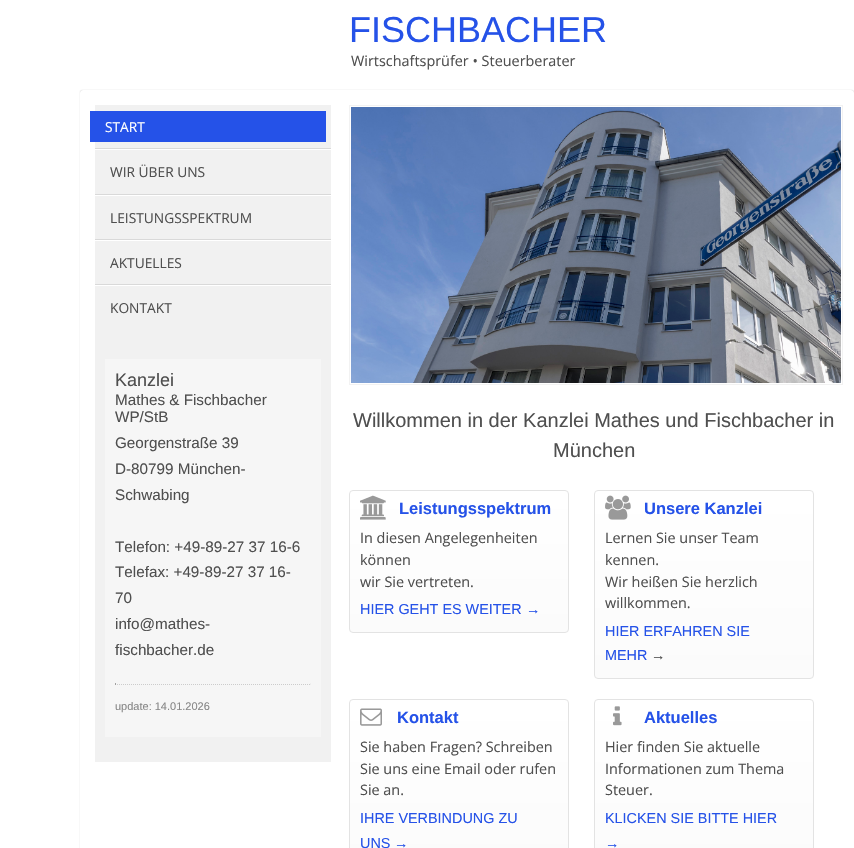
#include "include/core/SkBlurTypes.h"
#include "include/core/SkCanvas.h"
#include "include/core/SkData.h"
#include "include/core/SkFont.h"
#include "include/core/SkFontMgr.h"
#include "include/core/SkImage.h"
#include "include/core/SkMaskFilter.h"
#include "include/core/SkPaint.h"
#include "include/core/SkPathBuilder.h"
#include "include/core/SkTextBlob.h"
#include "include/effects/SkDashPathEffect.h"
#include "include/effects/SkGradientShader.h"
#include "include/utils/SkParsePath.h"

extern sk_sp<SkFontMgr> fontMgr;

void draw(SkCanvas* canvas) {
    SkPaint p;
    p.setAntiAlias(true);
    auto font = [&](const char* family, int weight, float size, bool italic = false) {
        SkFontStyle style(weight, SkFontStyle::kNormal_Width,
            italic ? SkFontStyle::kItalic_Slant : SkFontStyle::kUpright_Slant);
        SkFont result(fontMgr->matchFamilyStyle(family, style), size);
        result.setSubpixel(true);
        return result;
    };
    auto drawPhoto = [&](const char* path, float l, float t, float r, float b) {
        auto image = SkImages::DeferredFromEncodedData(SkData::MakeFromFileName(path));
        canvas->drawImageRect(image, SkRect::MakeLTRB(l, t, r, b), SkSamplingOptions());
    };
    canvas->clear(0xFFFFFFFF);
    auto font1 = font("Liberation Sans", 400, 36);
    p.setColor(0xFF2552E8);
    canvas->drawString("FISCHBACHER", 349, 42, font1, p);
    auto font2 = font("Open Sans", 400, 14.4f);
    p.setColor(0xFF4F4F4F);
    canvas->drawString("Wirtschaftsprüfer • Steuerberater", 351, 66, font2, p);
    p.setColor(0xFFBBBBBB);
    p.setMaskFilter(SkMaskFilter::MakeBlur(kNormal_SkBlurStyle, 0.5f));
    canvas->drawRoundRect(SkRect::MakeLTRB(80, 90, 854, 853), 3, 3, p);
    p.setMaskFilter(nullptr);
    p.setColor(0xFFFFFFFF);
    canvas->drawRoundRect(SkRect::MakeLTRB(80, 90, 854, 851), 3, 3, p);
    {
        const struct { float l, t, r, b; SkColor color; } items[] = {
            {95, 105, 331, 762, 0xFFF1F1F1},
            {95, 148, 331, 149, 0xFFD9D9D9},
            {90, 111, 326, 142, 0xFF2552E8},
        };
        for (auto [l, t, r, b, color] : items) {
            p.setColor(color);
            canvas->drawRect(SkRect::MakeLTRB(l, t, r, b), p);
        }
    }
    auto font3 = font("Open Sans", 400, 13.75f);
    p.setColor(0xFFFFFFFF);
    canvas->drawString("START", 105, 132, font3, p);
    canvas->drawRect(SkRect::MakeLTRB(95, 149, 331, 150), p);
    p.setColor(0xFFD9D9D9);
    canvas->drawRect(SkRect::MakeLTRB(95, 194, 331, 195), p);
    p.setColor(0xFF4F4F4F);
    canvas->drawString("WIR ÜBER UNS", 110, 177, font3, p);
    p.setColor(0xFFFFFFFF);
    canvas->drawRect(SkRect::MakeLTRB(95, 195, 331, 196), p);
    p.setColor(0xFFD9D9D9);
    canvas->drawRect(SkRect::MakeLTRB(95, 239, 331, 240), p);
    p.setColor(0xFF4F4F4F);
    canvas->drawString("LEISTUNGSSPEKTRUM", 110, 223, font3, p);
    p.setColor(0xFFFFFFFF);
    canvas->drawRect(SkRect::MakeLTRB(95, 240, 331, 241), p);
    p.setColor(0xFFD9D9D9);
    canvas->drawRect(SkRect::MakeLTRB(95, 284, 331, 285), p);
    p.setColor(0xFF4F4F4F);
    canvas->drawString("AKTUELLES", 110, 268, font3, p);
    p.setColor(0xFFFFFFFF);
    canvas->drawRect(SkRect::MakeLTRB(95, 285, 331, 286), p);
    p.setColor(0xFF4F4F4F);
    canvas->drawString("KONTAKT", 110, 313, font3, p);
    p.setColor(0xFFF6F6F6);
    canvas->drawRect(SkRect::MakeLTRB(105, 359, 321, 737), p);
    auto font4 = font("Liberation Sans", 400, 18);
    p.setColor(0xFF4F4F4F);
    canvas->drawString("Kanzlei", 115, 386, font4, p);
    auto font5 = font("Liberation Sans", 400, 15.25f);
    {
        const struct { const char* s; float x, y; } items[] = {
            {"Mathes & Fischbacher", 115, 405},
            {"WP/StB", 115, 422},
            {"Georgenstraße 39", 115, 448},
            {"D-80799 München-", 115, 474},
            {"Schwabing", 115, 500},
            {"Telefon: +49-89-27 37 16-6", 115, 552},
            {"Telefax: +49-89-27 37 16-", 115, 577},
            {"70", 115, 603},
            {"info@mathes-", 115, 629},
            {"fischbacher.de", 115, 655},
        };
        for (auto [s, x, y] : items) {
            canvas->drawString(s, x, y, font5, p);
        }
    }
    p.setColor(0xFFEEEEEE);
    canvas->drawRect(SkRect::MakeLTRB(310, 683, 311, 685), p);
    p.setStyle(SkPaint::kStroke_Style);
    p.setStrokeWidth(1);
    p.setColor(0xFFCCCCCC);
    p.setPathEffect(SkDashPathEffect::Make({{1, 1}}, 0));
    canvas->drawPath(SkPathBuilder().moveTo(115, 684.5f).lineTo(311, 684.5f).detach(), p);
    p.setPathEffect(nullptr);
    p.setStyle(SkPaint::kFill_Style);
    p.setColor(0xFF9F9F9F);
    canvas->drawRect(SkRect::MakeLTRB(115, 683, 116, 685), p);
    auto font6 = font("Liberation Sans", 400, 11);
    p.setColor(0xFF888888);
    canvas->drawString("update: 14.01.2026", 115, 710, font6, p);
    p.setStyle(SkPaint::kStroke_Style);
    p.setColor(0xFFF2F2F2);
    canvas->drawRect(SkRect::MakeLTRB(349.5f, 105.5f, 842.5f, 384.5f), p);
    drawPhoto("media/1.png", 351, 107, 841, 383);
    auto font7 = font("Liberation Sans", 400, 20);
    p.setStyle(SkPaint::kFill_Style);
    p.setColor(0xFF4F4F4F);
    canvas->drawString("Willkommen in der Kanzlei Mathes und Fischbacher in", 353, 427, font7, p);
    canvas->drawString("München", 553, 457, font7, p);
    canvas->save();
    canvas->clipPath(SkPathBuilder().moveTo(353, 490).lineTo(565, 490).cubicTo(567, 490, 569, 492, 569, 494).lineTo(569, 629).cubicTo(569, 631, 567, 633, 565, 633).lineTo(353, 633).cubicTo(351, 633, 349, 631, 349, 629).lineTo(349, 494).cubicTo(349, 492, 351, 490, 353, 490).close().detach(), true);
    {
        const SkColor colors[] = {0xFFFFFFFF, 0xFFFBFBFB};
        const float stops[] = {0, 1};
        const SkPoint ends[] = {{459, 491}, {459, 632}};
        p.setShader(SkGradientShader::MakeLinear(ends, colors, stops, 2, SkTileMode::kClamp));
        p.setAlpha(255);
    }
    canvas->drawRect(SkRect::MakeLTRB(349, 491, 569, 632), p);
    canvas->restore();
    p.setStyle(SkPaint::kStroke_Style);
    p.setShader(nullptr);
    p.setColor(0xFFE3E3E3);
    canvas->drawRoundRect(SkRect::MakeLTRB(349.5f, 490.5f, 568.5f, 632.5f), 3.5f, 3.5f, p);
    drawPhoto("media/2.png", 360, 495, 386, 520);
    auto font8 = font("Liberation Sans", 700, 16.5f);
    p.setStyle(SkPaint::kFill_Style);
    p.setColor(0xFF2552E8);
    canvas->drawString("Leistungsspektrum", 399, 514, font8, p);
    p.setColor(0xFF4F4F4F);
    {
        const struct { const char* s; float x, y; } items[] = {
            {"In diesen Angelegenheiten", 360, 543},
            {"können", 360, 565},
            {"wir Sie vertreten.", 360, 587},
        };
        for (auto [s, x, y] : items) {
            canvas->drawString(s, x, y, font2, p);
        }
    }
    auto font9 = font("Liberation Sans", 400, 14.4f);
    p.setColor(0xFF2552E8);
    canvas->drawString("HIER GEHT ES WEITER", 360, 614, font9, p);
    auto font10 = font("Liberation Sans", 700, 14.4f);
    canvas->drawString("→", 526, 614, font10, p);
    canvas->save();
    canvas->clipPath(SkPathBuilder().moveTo(598, 490).lineTo(810, 490).cubicTo(812, 490, 814, 492, 814, 494).lineTo(814, 675).cubicTo(814, 677, 812, 679, 810, 679).lineTo(598, 679).cubicTo(596, 679, 594, 677, 594, 675).lineTo(594, 494).cubicTo(594, 492, 596, 490, 598, 490).close().detach(), true);
    {
        const SkColor colors[] = {0xFFFFFFFF, 0xFFFBFBFB};
        const float stops[] = {0, 1};
        const SkPoint ends[] = {{704, 491}, {704, 678}};
        p.setShader(SkGradientShader::MakeLinear(ends, colors, stops, 2, SkTileMode::kClamp));
        p.setAlpha(255);
    }
    canvas->drawRect(SkRect::MakeLTRB(594, 491, 814, 678), p);
    canvas->restore();
    p.setStyle(SkPaint::kStroke_Style);
    p.setShader(nullptr);
    p.setColor(0xFFE3E3E3);
    canvas->drawRoundRect(SkRect::MakeLTRB(594.5f, 490.5f, 813.5f, 678.5f), 3.5f, 3.5f, p);
    drawPhoto("media/3.png", 605, 495, 631, 520);
    p.setStyle(SkPaint::kFill_Style);
    p.setColor(0xFF2552E8);
    canvas->drawString("Unsere Kanzlei", 644, 514, font8, p);
    p.setColor(0xFF4F4F4F);
    {
        const struct { const char* s; float x, y; } items[] = {
            {"Lernen Sie unser Team", 605, 543},
            {"kennen.", 605, 565},
            {"Wir heißen Sie herzlich", 605, 587},
            {"willkommen.", 605, 608},
        };
        for (auto [s, x, y] : items) {
            canvas->drawString(s, x, y, font2, p);
        }
    }
    p.setColor(0xFF2552E8);
    canvas->drawString("HIER ERFAHREN SIE", 605, 636, font9, p);
    canvas->drawString("MEHR", 605, 660, font9, p);
    p.setColor(0xFF4F4F4F);
    canvas->drawString("→", 651, 660, font9, p);
    canvas->save();
    canvas->clipPath(SkPathBuilder().moveTo(353, 699).lineTo(565, 699).cubicTo(567, 699, 569, 701, 569, 703).lineTo(569, 862).cubicTo(569, 864, 567, 866, 565, 866).lineTo(353, 866).cubicTo(351, 866, 349, 864, 349, 862).lineTo(349, 703).cubicTo(349, 701, 351, 699, 353, 699).close().detach(), true);
    {
        const SkColor colors[] = {0xFFFFFFFF, 0xFFFBFBFB};
        const float stops[] = {0, 1};
        const SkPoint ends[] = {{459, 700}, {459, 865}};
        p.setShader(SkGradientShader::MakeLinear(ends, colors, stops, 2, SkTileMode::kClamp));
        p.setAlpha(255);
    }
    canvas->drawRect(SkRect::MakeLTRB(349, 700, 569, 848), p);
    canvas->restore();
    p.setStyle(SkPaint::kStroke_Style);
    p.setShader(nullptr);
    p.setColor(0xFFE3E3E3);
    canvas->drawRoundRect(SkRect::MakeLTRB(349.5f, 699.5f, 568.5f, 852.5f), 3.5f, 3.5f, p);
    drawPhoto("media/4.png", 360, 708, 382, 726);
    p.setStyle(SkPaint::kFill_Style);
    p.setColor(0xFF2552E8);
    canvas->drawString("Kontakt", 397, 723, font8, p);
    p.setColor(0xFF4F4F4F);
    {
        const struct { const char* s; float x, y; } items[] = {
            {"Sie haben Fragen? Schreiben", 360, 752},
            {"Sie uns eine Email oder rufen", 360, 774},
            {"Sie an.", 360, 795},
        };
        for (auto [s, x, y] : items) {
            canvas->drawString(s, x, y, font2, p);
        }
    }
    p.setColor(0xFF2552E8);
    canvas->drawString("IHRE VERBINDUNG ZU", 360, 823, font9, p);
    canvas->drawString("UNS", 360, 848, font9, p);
    canvas->drawString("→", 394, 848, font10, p);
    canvas->save();
    canvas->clipPath(SkPathBuilder().moveTo(598, 699).lineTo(810, 699).cubicTo(812, 699, 814, 701, 814, 703).lineTo(814, 862).cubicTo(814, 864, 812, 866, 810, 866).lineTo(598, 866).cubicTo(596, 866, 594, 864, 594, 862).lineTo(594, 703).cubicTo(594, 701, 596, 699, 598, 699).close().detach(), true);
    {
        const SkColor colors[] = {0xFFFFFFFF, 0xFFFBFBFB};
        const float stops[] = {0, 1};
        const SkPoint ends[] = {{704, 700}, {704, 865}};
        p.setShader(SkGradientShader::MakeLinear(ends, colors, stops, 2, SkTileMode::kClamp));
        p.setAlpha(255);
    }
    canvas->drawRect(SkRect::MakeLTRB(594, 700, 814, 848), p);
    canvas->restore();
    p.setStyle(SkPaint::kStroke_Style);
    p.setShader(nullptr);
    p.setColor(0xFFE3E3E3);
    canvas->drawRoundRect(SkRect::MakeLTRB(594.5f, 699.5f, 813.5f, 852.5f), 3.5f, 3.5f, p);
    drawPhoto("media/5.png", 613, 706, 622, 726);
    p.setStyle(SkPaint::kFill_Style);
    p.setColor(0xFF2552E8);
    canvas->drawString("Aktuelles", 644, 723, font8, p);
    p.setColor(0xFF4F4F4F);
    {
        const struct { const char* s; float x, y; } items[] = {
            {"Hier finden Sie aktuelle", 605, 752},
            {"Informationen zum Thema", 605, 774},
            {"Steuer.", 605, 795},
        };
        for (auto [s, x, y] : items) {
            canvas->drawString(s, x, y, font2, p);
        }
    }
    p.setColor(0xFF2552E8);
    canvas->drawString("KLICKEN SIE BITTE HIER", 605, 823, font9, p);
    canvas->drawString("→", 605, 848, font10, p);
}
